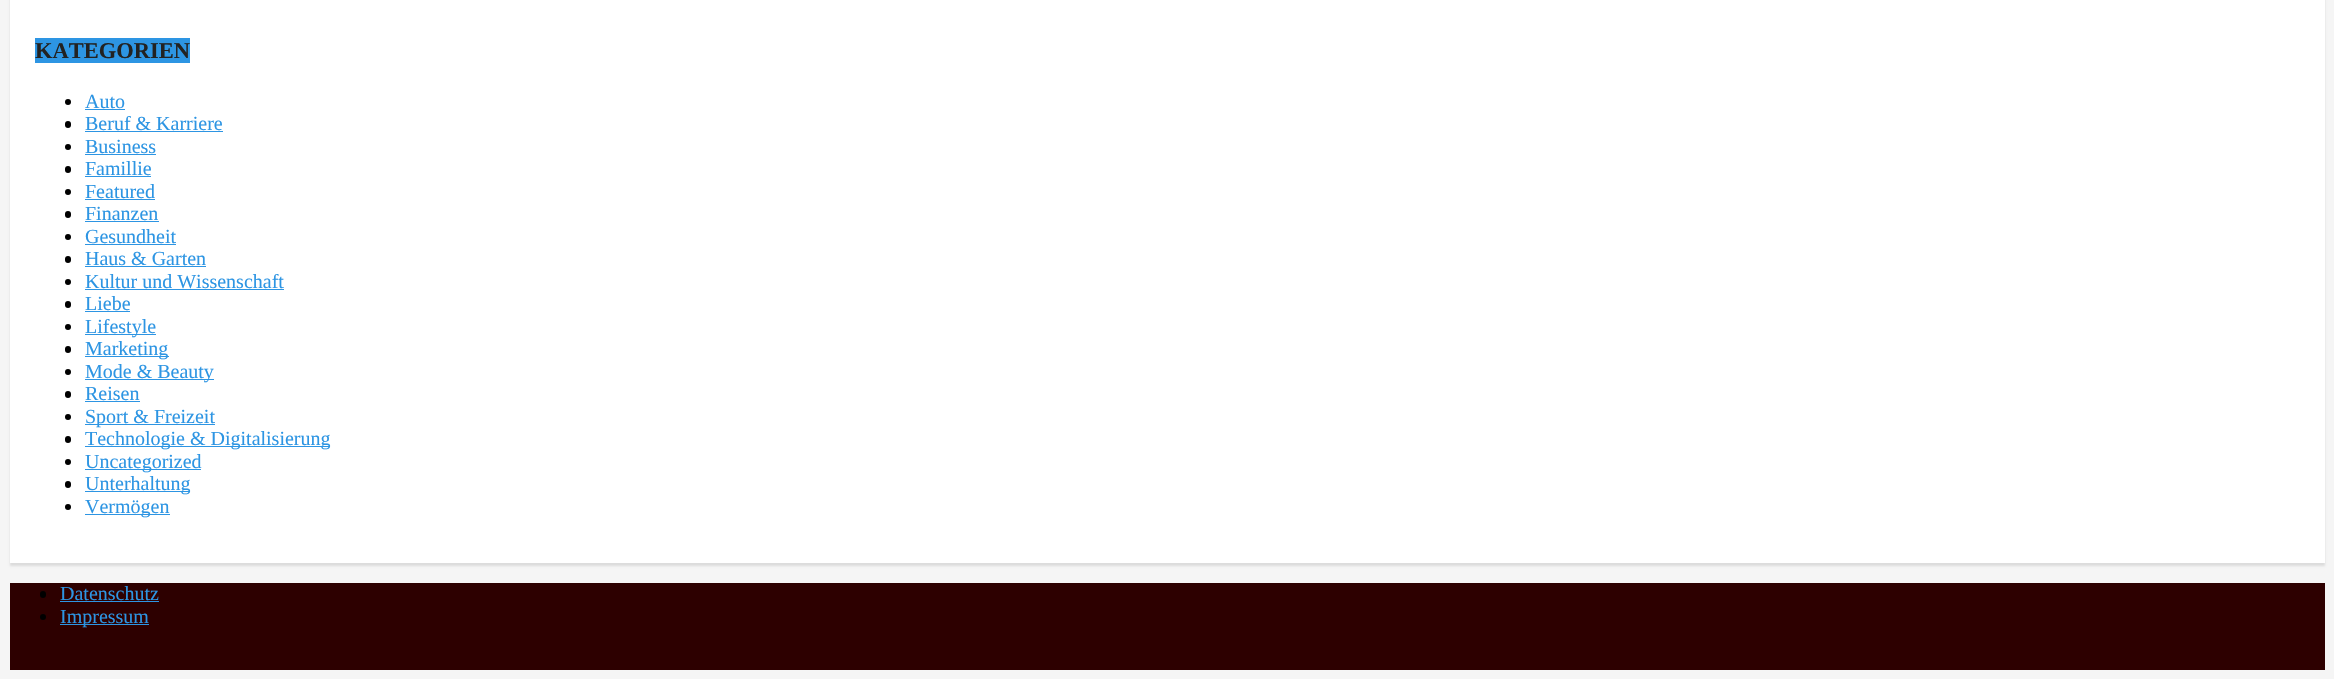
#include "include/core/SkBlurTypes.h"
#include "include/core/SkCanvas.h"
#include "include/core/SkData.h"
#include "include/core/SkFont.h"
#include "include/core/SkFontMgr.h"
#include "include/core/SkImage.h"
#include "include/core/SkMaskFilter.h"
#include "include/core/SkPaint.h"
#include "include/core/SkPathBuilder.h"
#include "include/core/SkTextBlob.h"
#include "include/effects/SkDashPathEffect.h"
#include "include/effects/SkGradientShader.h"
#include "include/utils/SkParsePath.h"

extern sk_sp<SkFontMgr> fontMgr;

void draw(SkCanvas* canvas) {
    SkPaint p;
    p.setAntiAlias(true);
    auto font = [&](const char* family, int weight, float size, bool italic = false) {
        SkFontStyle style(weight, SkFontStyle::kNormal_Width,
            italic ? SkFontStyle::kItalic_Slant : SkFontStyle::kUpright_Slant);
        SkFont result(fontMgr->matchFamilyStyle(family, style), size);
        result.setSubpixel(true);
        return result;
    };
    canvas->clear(0xFFF5F5F5);
    p.setColor(0x1A000000);
    p.setMaskFilter(SkMaskFilter::MakeBlur(kNormal_SkBlurStyle, 1));
    canvas->drawRect(SkRect::MakeLTRB(10, -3, 2325, 566), p);
    p.setMaskFilter(nullptr);
    p.setColor(0xFFFFFFFF);
    canvas->drawRect(SkRect::MakeLTRB(10, 0, 2325, 563), p);
    p.setColor(0xFF2D95E3);
    canvas->drawRect(SkRect::MakeLTRB(35, 38, 190, 63), p);
    auto font1 = font("Liberation Serif", 700, 22.5f);
    p.setColor(0xFF222222);
    canvas->drawString("KATEGORIEN", 35, 58, font1, p);
    p.setColor(0xFF000000);
    canvas->drawCircle(68, 102, 3, p);
    auto font2 = font("Liberation Serif", 400, 20);
    p.setColor(0xFF2D95E3);
    canvas->drawString("Auto", 85, 108, font2, p);
    canvas->drawRect(SkRect::MakeLTRB(85, 109, 125, 110), p);
    p.setColor(0xFF000000);
    canvas->drawRoundRect(SkRect::MakeLTRB(65, 121, 71, 128), 3, 3, p);
    p.setColor(0xFF2D95E3);
    canvas->drawString("Beruf & Karriere", 85, 130, font2, p);
    canvas->drawRect(SkRect::MakeLTRB(85, 131, 223, 132), p);
    p.setColor(0xFF000000);
    canvas->drawCircle(68, 147, 3, p);
    p.setColor(0xFF2D95E3);
    canvas->drawString("Business", 85, 153, font2, p);
    canvas->drawRect(SkRect::MakeLTRB(85, 154, 156, 155), p);
    p.setColor(0xFF000000);
    canvas->drawRoundRect(SkRect::MakeLTRB(65, 166, 71, 173), 3, 3, p);
    p.setColor(0xFF2D95E3);
    canvas->drawString("Famillie", 85, 175, font2, p);
    canvas->drawRect(SkRect::MakeLTRB(85, 176, 151, 177), p);
    p.setColor(0xFF000000);
    canvas->drawCircle(68, 192, 3, p);
    p.setColor(0xFF2D95E3);
    canvas->drawString("Featured", 85, 198, font2, p);
    canvas->drawRect(SkRect::MakeLTRB(85, 199, 155, 200), p);
    p.setColor(0xFF000000);
    canvas->drawRoundRect(SkRect::MakeLTRB(65, 211, 71, 218), 3, 3, p);
    p.setColor(0xFF2D95E3);
    canvas->drawString("Finanzen", 85, 220, font2, p);
    canvas->drawRect(SkRect::MakeLTRB(85, 221, 159, 222), p);
    p.setColor(0xFF000000);
    canvas->drawCircle(68, 237, 3, p);
    p.setColor(0xFF2D95E3);
    canvas->drawString("Gesundheit", 85, 243, font2, p);
    canvas->drawRect(SkRect::MakeLTRB(85, 244, 176, 245), p);
    p.setColor(0xFF000000);
    canvas->drawRoundRect(SkRect::MakeLTRB(65, 256, 71, 263), 3, 3, p);
    p.setColor(0xFF2D95E3);
    canvas->drawString("Haus & Garten", 85, 265, font2, p);
    canvas->drawRect(SkRect::MakeLTRB(85, 266, 206, 267), p);
    p.setColor(0xFF000000);
    canvas->drawCircle(68, 282, 3, p);
    p.setColor(0xFF2D95E3);
    canvas->drawString("Kultur und Wissenschaft", 85, 288, font2, p);
    canvas->drawRect(SkRect::MakeLTRB(85, 289, 284, 290), p);
    p.setColor(0xFF000000);
    canvas->drawRoundRect(SkRect::MakeLTRB(65, 301, 71, 308), 3, 3, p);
    p.setColor(0xFF2D95E3);
    canvas->drawString("Liebe", 85, 310, font2, p);
    canvas->drawRect(SkRect::MakeLTRB(85, 311, 130, 312), p);
    p.setColor(0xFF000000);
    canvas->drawCircle(68, 327, 3, p);
    p.setColor(0xFF2D95E3);
    canvas->drawRect(SkRect::MakeLTRB(85, 334, 156, 335), p);
    canvas->drawString("Lifestyle", 85, 333, font2, p);
    p.setColor(0xFF000000);
    canvas->drawRoundRect(SkRect::MakeLTRB(65, 346, 71, 353), 3, 3, p);
    p.setColor(0xFF2D95E3);
    canvas->drawRect(SkRect::MakeLTRB(85, 356, 169, 357), p);
    canvas->drawString("Marketing", 85, 355, font2, p);
    p.setColor(0xFF000000);
    canvas->drawCircle(68, 372, 3, p);
    p.setColor(0xFF2D95E3);
    canvas->drawRect(SkRect::MakeLTRB(85, 379, 214, 380), p);
    canvas->drawString("Mode & Beauty", 85, 378, font2, p);
    p.setColor(0xFF000000);
    canvas->drawRoundRect(SkRect::MakeLTRB(65, 391, 71, 398), 3, 3, p);
    p.setColor(0xFF2D95E3);
    canvas->drawString("Reisen", 85, 400, font2, p);
    canvas->drawRect(SkRect::MakeLTRB(85, 401, 140, 402), p);
    p.setColor(0xFF000000);
    canvas->drawCircle(68, 417, 3, p);
    p.setColor(0xFF2D95E3);
    canvas->drawRect(SkRect::MakeLTRB(85, 424, 215, 425), p);
    canvas->drawString("Sport & Freizeit", 85, 423, font2, p);
    p.setColor(0xFF000000);
    canvas->drawRoundRect(SkRect::MakeLTRB(65, 436, 71, 443), 3, 3, p);
    p.setColor(0xFF2D95E3);
    canvas->drawRect(SkRect::MakeLTRB(85, 446, 330, 447), p);
    canvas->drawString("Technologie & Digitalisierung", 85, 445, font2, p);
    p.setColor(0xFF000000);
    canvas->drawCircle(68, 462, 3, p);
    p.setColor(0xFF2D95E3);
    canvas->drawRect(SkRect::MakeLTRB(85, 469, 201, 470), p);
    canvas->drawString("Uncategorized", 85, 468, font2, p);
    p.setColor(0xFF000000);
    canvas->drawRoundRect(SkRect::MakeLTRB(65, 481, 71, 488), 3, 3, p);
    p.setColor(0xFF2D95E3);
    canvas->drawRect(SkRect::MakeLTRB(85, 491, 190, 492), p);
    canvas->drawString("Unterhaltung", 85, 490, font2, p);
    p.setColor(0xFF000000);
    canvas->drawCircle(68, 507, 3, p);
    p.setColor(0xFF2D95E3);
    canvas->drawRect(SkRect::MakeLTRB(85, 514, 170, 515), p);
    canvas->drawString("Vermögen", 85, 513, font2, p);
    p.setColor(0xFF2D0000);
    canvas->drawRect(SkRect::MakeLTRB(10, 583, 2325, 670), p);
    p.setColor(0xFF000000);
    canvas->drawRoundRect(SkRect::MakeLTRB(40, 591, 46, 598), 3, 3, p);
    p.setColor(0xFF2D95E3);
    canvas->drawString("Datenschutz", 60, 600, font2, p);
    canvas->drawRect(SkRect::MakeLTRB(60, 601, 159, 602), p);
    p.setColor(0xFF000000);
    canvas->drawCircle(43, 617, 3, p);
    p.setColor(0xFF2D95E3);
    canvas->drawRect(SkRect::MakeLTRB(60, 624, 149, 625), p);
    canvas->drawString("Impressum", 60, 623, font2, p);
}
